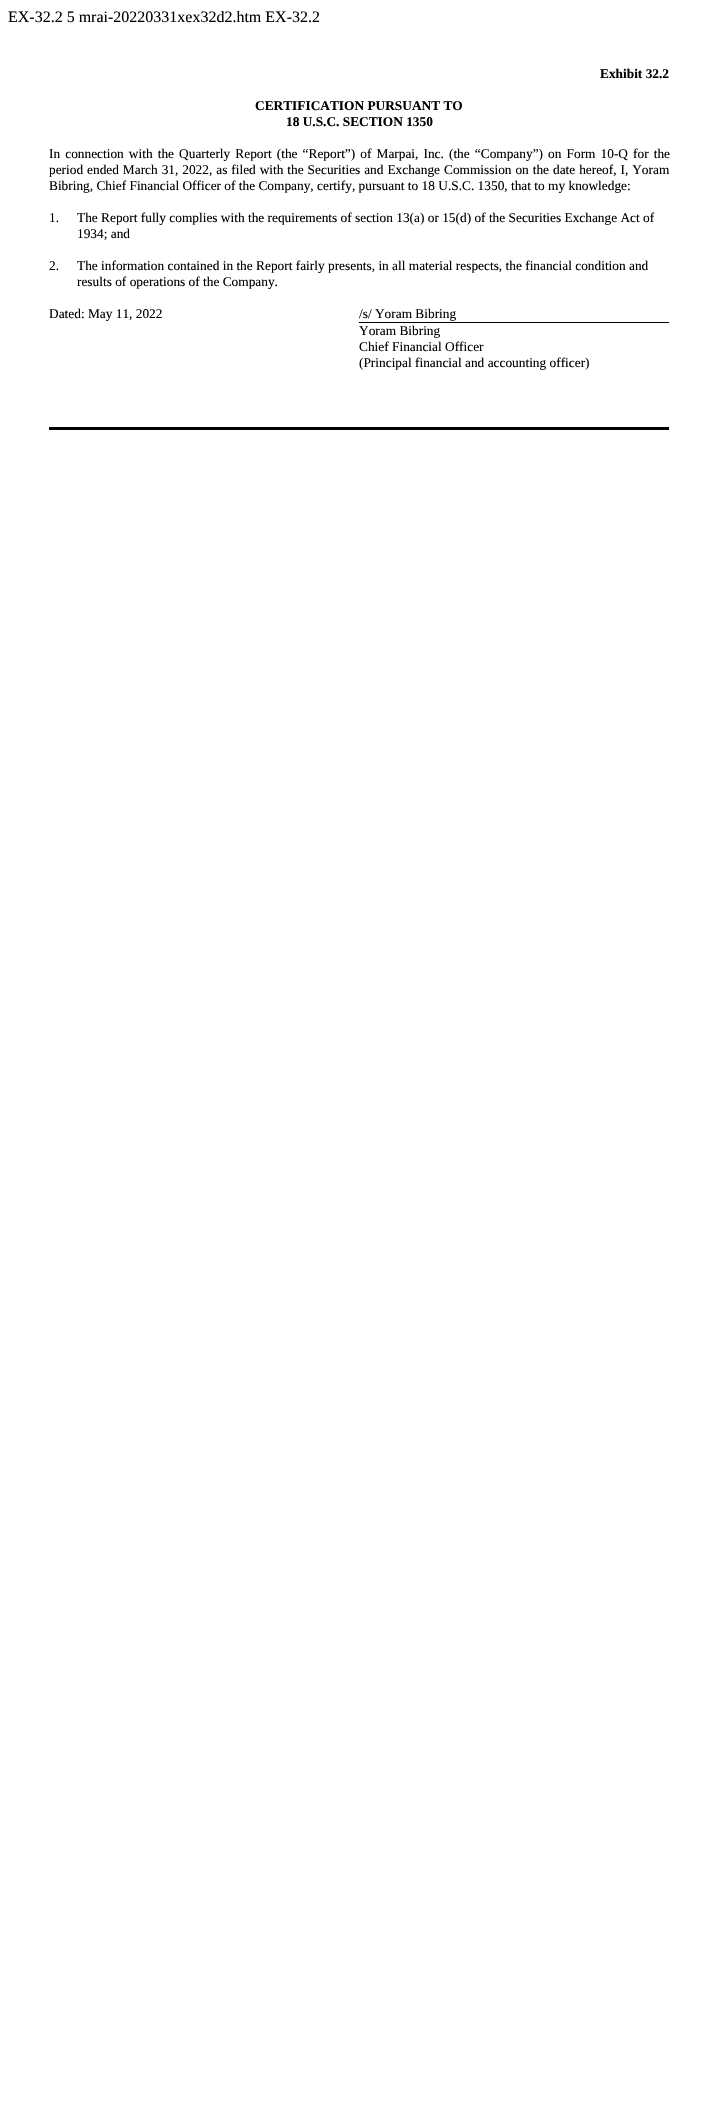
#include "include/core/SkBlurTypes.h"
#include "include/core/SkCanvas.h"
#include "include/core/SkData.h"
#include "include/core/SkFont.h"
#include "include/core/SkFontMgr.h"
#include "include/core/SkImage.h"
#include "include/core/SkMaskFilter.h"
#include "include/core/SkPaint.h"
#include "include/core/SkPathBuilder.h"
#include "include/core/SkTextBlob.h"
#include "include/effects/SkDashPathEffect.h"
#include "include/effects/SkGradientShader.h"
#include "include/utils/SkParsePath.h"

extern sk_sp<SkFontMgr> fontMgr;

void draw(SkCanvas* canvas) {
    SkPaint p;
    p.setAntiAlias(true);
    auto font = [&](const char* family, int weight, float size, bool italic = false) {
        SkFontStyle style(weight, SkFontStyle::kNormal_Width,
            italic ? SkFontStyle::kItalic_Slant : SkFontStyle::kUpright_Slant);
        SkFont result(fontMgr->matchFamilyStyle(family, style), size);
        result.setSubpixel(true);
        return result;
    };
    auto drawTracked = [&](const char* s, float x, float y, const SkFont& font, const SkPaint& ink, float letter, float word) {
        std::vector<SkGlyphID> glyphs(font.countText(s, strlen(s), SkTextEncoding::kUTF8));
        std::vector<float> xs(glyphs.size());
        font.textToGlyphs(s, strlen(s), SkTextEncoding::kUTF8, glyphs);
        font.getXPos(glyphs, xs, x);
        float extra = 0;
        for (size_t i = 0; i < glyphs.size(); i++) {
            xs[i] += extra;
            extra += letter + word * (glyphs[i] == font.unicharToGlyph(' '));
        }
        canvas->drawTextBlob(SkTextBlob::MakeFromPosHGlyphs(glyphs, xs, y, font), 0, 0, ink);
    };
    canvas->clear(0xFFFFFFFF);
    auto font1 = font("Liberation Serif", 400, 16);
    p.setColor(0xFF000000);
    canvas->drawString("EX-32.2 5 mrai-20220331xex32d2.htm EX-32.2", 8, 22, font1, p);
    auto font2 = font("Liberation Serif", 700, 13.35f);
    {
        const struct { const char* s; float x, y; } items[] = {
            {"Exhibit 32.2", 600, 78},
            {"CERTIFICATION PURSUANT TO", 255, 110},
            {"18 U.S.C. SECTION 1350", 286, 126},
        };
        for (auto [s, x, y] : items) {
            canvas->drawString(s, x, y, font2, p);
        }
    }
    auto font3 = font("Liberation Serif", 400, 13.35f);
    drawTracked("In connection with the Quarterly Report (the “Report”) of Marpai, Inc. (the “Company”) on Form 10-Q for the", 49, 158, font3, p, 0, 1.75f);
    drawTracked("period ended March 31, 2022, as filed with the Securities and Exchange Commission on the date hereof, I, Yoram", 49, 174, font3, p, 0, 0.6f);
    {
        const struct { const char* s; float x, y; } items[] = {
            {"Bibring, Chief Financial Officer of the Company, certify, pursuant to 18 U.S.C. 1350, that to my knowledge:", 49, 190},
            {"1.", 49, 222},
            {"The Report fully complies with the requirements of section 13(a) or 15(d) of the Securities Exchange Act of", 77, 222},
            {"1934; and", 77, 238},
            {"2.", 49, 270},
            {"The information contained in the Report fairly presents, in all material respects, the financial condition and", 77, 270},
            {"results of operations of the Company.", 77, 286},
            {"Dated: May 11, 2022", 49, 318},
            {"/s/ Yoram Bibring", 359, 318},
        };
        for (auto [s, x, y] : items) {
            canvas->drawString(s, x, y, font3, p);
        }
    }
    canvas->drawRect(SkRect::MakeLTRB(359, 322, 669, 323), p);
    {
        const struct { const char* s; float x, y; } items[] = {
            {"Yoram Bibring", 359, 335},
            {"Chief Financial Officer", 359, 351},
            {"(Principal financial and accounting officer)", 359, 367},
        };
        for (auto [s, x, y] : items) {
            canvas->drawString(s, x, y, font3, p);
        }
    }
    canvas->drawRect(SkRect::MakeLTRB(49, 427, 669, 430), p);
}
